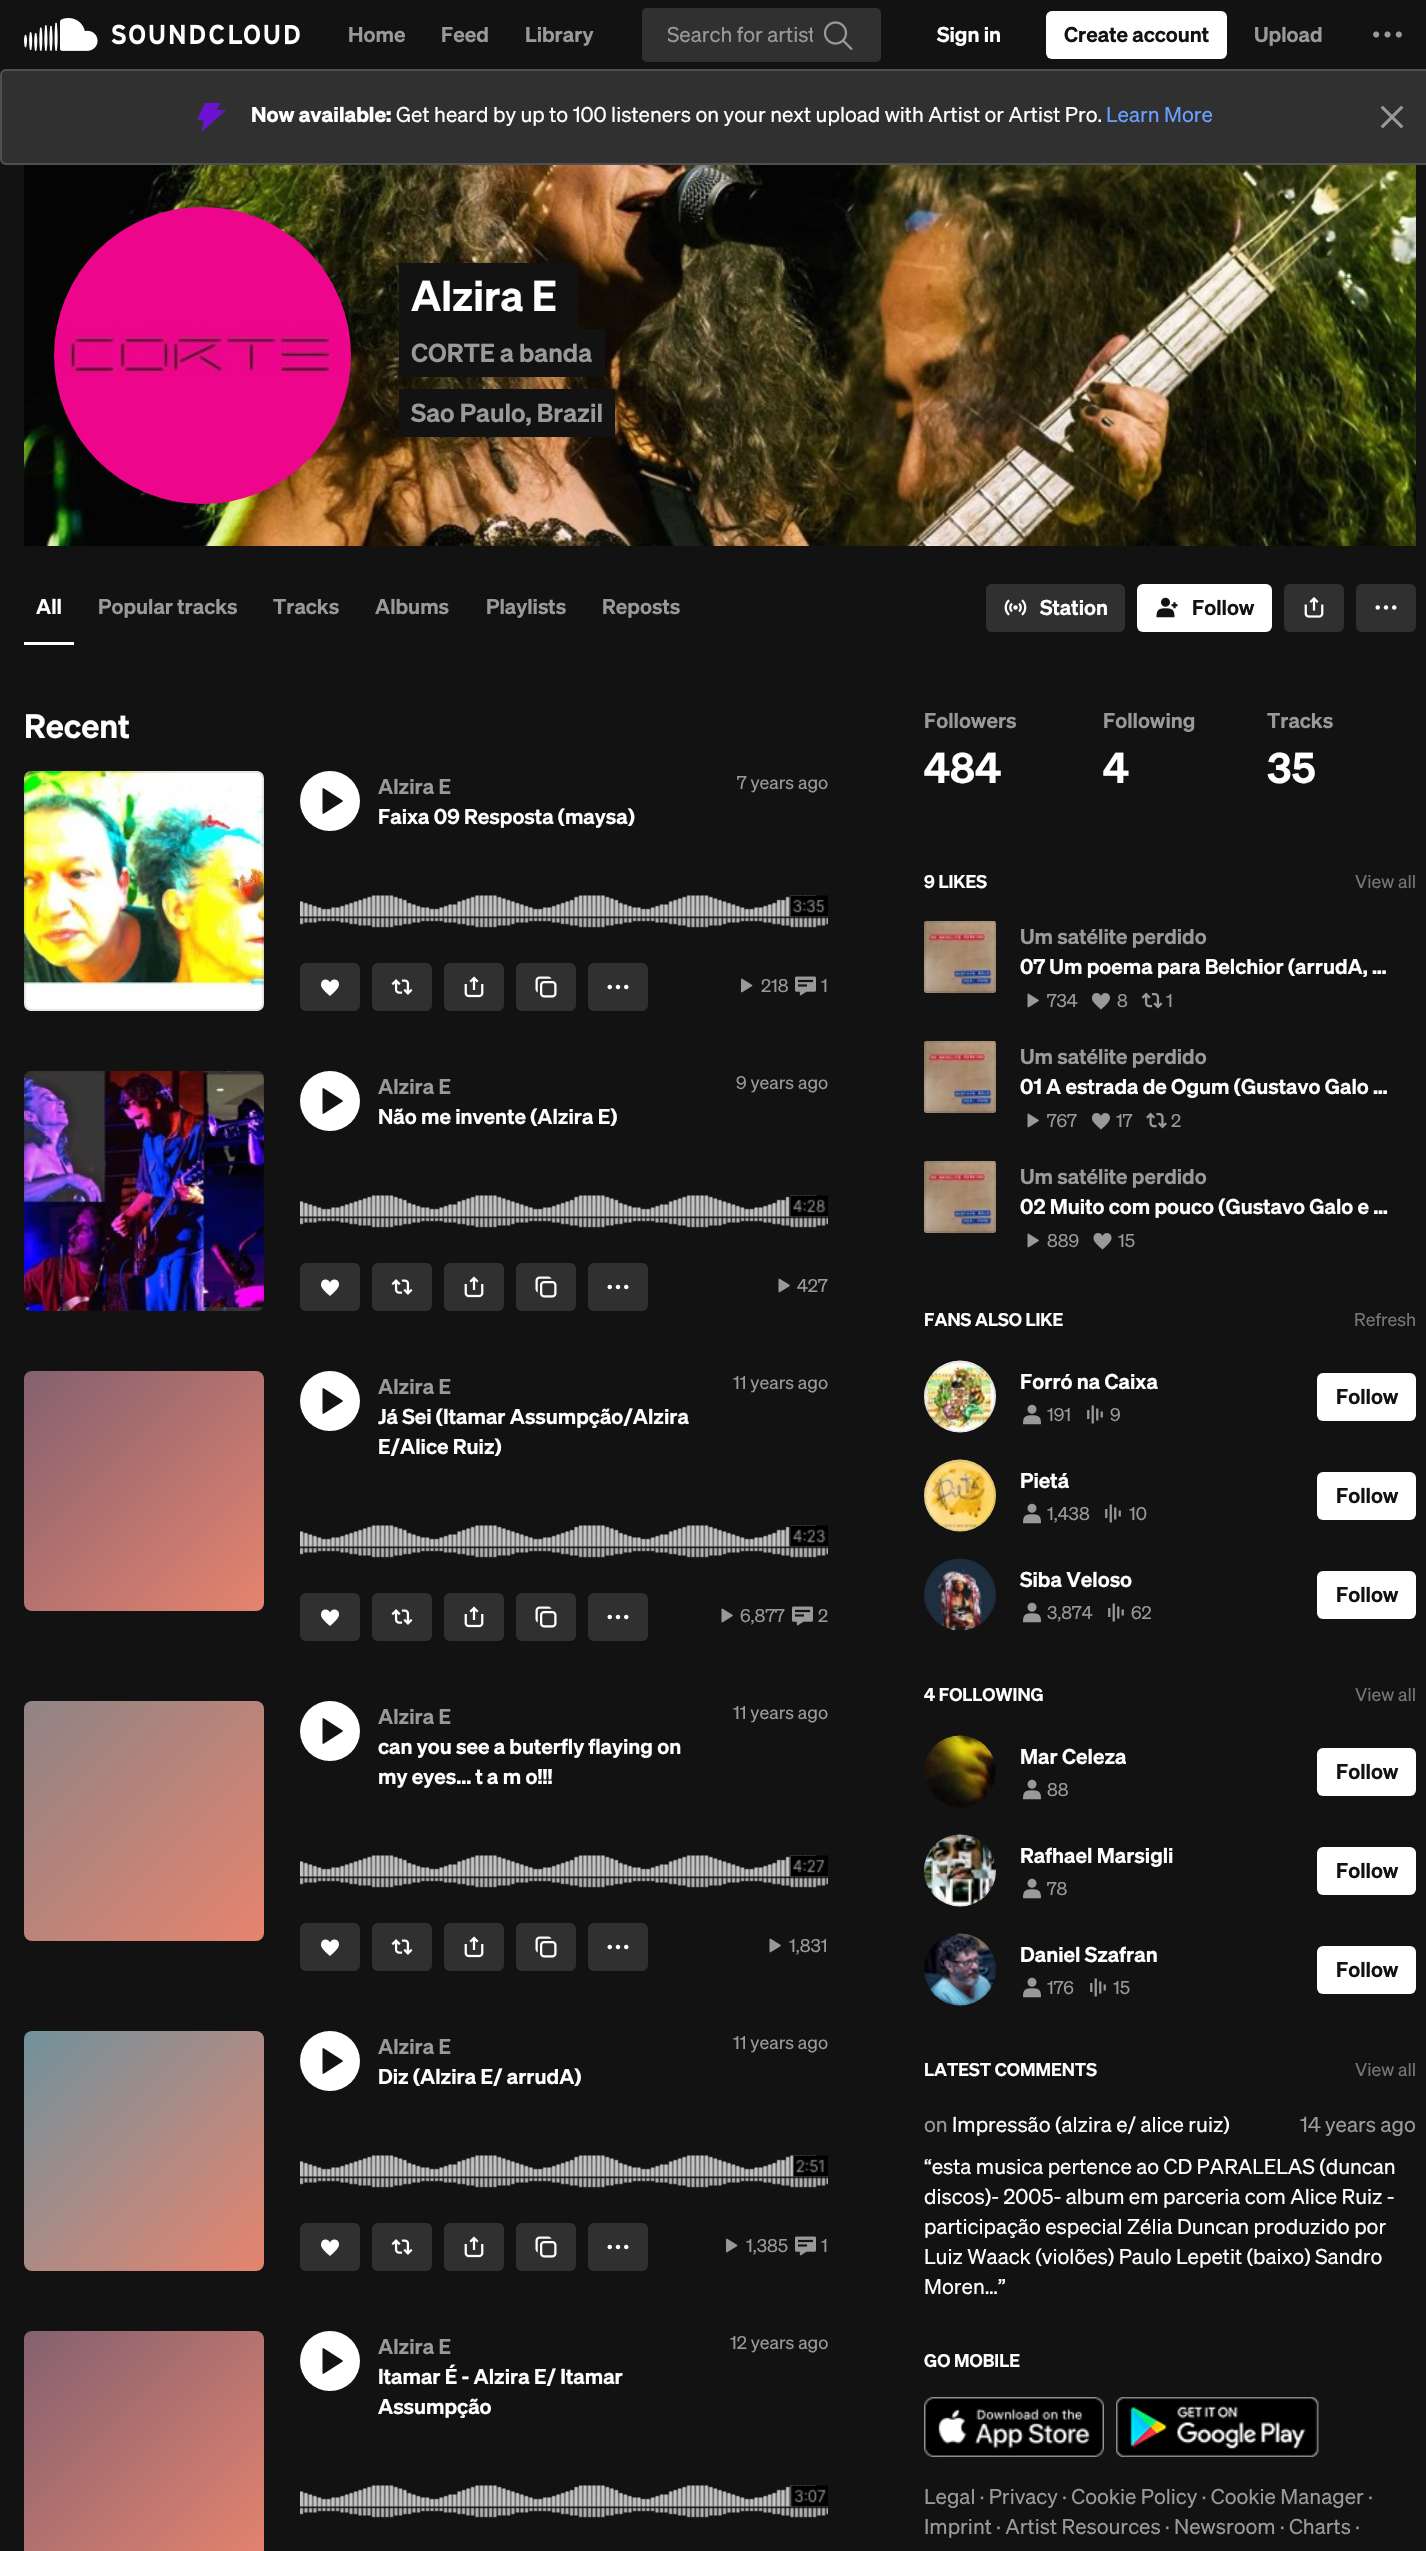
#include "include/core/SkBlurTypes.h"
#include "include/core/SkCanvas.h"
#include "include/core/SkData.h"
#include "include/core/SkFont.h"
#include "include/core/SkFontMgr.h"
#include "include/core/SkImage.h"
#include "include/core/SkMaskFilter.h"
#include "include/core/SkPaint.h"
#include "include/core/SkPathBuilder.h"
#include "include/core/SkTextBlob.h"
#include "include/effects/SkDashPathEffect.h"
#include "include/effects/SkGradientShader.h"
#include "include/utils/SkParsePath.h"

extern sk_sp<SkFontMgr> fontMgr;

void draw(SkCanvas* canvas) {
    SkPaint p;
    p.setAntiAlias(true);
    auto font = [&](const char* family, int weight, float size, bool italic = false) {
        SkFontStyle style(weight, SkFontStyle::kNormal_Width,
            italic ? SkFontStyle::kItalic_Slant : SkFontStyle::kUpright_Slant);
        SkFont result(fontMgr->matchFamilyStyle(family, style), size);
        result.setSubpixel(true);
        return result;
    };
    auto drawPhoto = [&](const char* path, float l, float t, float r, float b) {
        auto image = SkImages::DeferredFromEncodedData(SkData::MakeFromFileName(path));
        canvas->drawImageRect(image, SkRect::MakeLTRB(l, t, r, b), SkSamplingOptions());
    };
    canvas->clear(0xFF121212);
    drawPhoto("media/1.png", 24, 18, 300, 51);
    auto font1 = font("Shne", 600, 21);
    p.setColor(0xFF999999);
    {
        const struct { const char* s; float x, y; } items[] = {
            {"Home", 348, 42},
            {"Feed", 441, 42},
            {"Library", 525, 42},
        };
        for (auto [s, x, y] : items) {
            canvas->drawString(s, x, y, font1, p);
        }
    }
    p.setColor(0xFF303030);
    canvas->drawRoundRect(SkRect::MakeLTRB(642, 8, 881, 62), 5, 5, p);
    canvas->save();
    canvas->clipRect(SkRect::MakeLTRB(668, 18, 813, 51));
    auto font2 = font("Shne", 400, 21);
    p.setColor(0xFF999999);
    canvas->drawString("Search for artist", 667, 42, font2, p);
    canvas->restore();
    drawPhoto("media/2.png", 823, 21, 853, 51);
    p.setColor(0xFFFFFFFF);
    canvas->drawString("Sign in", 937, 42, font1, p);
    canvas->drawRoundRect(SkRect::MakeLTRB(1046, 11, 1227, 59), 6, 6, p);
    p.setColor(0xFF121212);
    canvas->drawString("Create account", 1064, 42, font1, p);
    p.setColor(0xFF999999);
    canvas->drawString("Upload", 1254, 42, font1, p);
    drawPhoto("media/3.png", 1373, 31, 1402, 38);
    p.setColor(0xFF303030);
    canvas->drawRoundRect(SkRect::MakeLTRB(0, 69, 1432, 165), 6, 6, p);
    p.setStyle(SkPaint::kStroke_Style);
    p.setStrokeWidth(2);
    p.setColor(0x26FFFFFF);
    canvas->drawRoundRect(SkRect::MakeLTRB(1, 70, 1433, 164), 5, 5, p);
    p.setStyle(SkPaint::kFill_Style);
    p.setColor(0xFF6C12D2);
    canvas->drawPath(SkPathBuilder().moveTo(205, 103).lineTo(197, 120).lineTo(204, 120).lineTo(201.5f, 132).lineTo(226, 110).lineTo(216.5f, 110).lineTo(220.5f, 103).close().detach(), p);
    auto font3 = font("Shne", 700, 21);
    p.setColor(0xFFFFFFFF);
    canvas->drawString("Now available:", 251, 122, font3, p);
    canvas->drawString("Get heard by up to 100 listeners on your next upload with Artist or Artist Pro.", 396, 122, font2, p);
    p.setColor(0xFF699FFF);
    canvas->drawString("Learn More", 1106, 122, font2, p);
    drawPhoto("media/4.png", 1380, 105, 1404, 129);
    drawPhoto("media/5.png", 24, 165, 1416, 546);
    drawPhoto("media/6.png", 54, 207, 351, 504);
    p.setColor(0xFF121212);
    canvas->drawRect(SkRect::MakeLTRB(399, 263, 578, 329), p);
    auto font4 = font("Shne", 600, 42);
    p.setColor(0xFFFFFFFF);
    canvas->drawString("Alzira E", 411, 311, font4, p);
    p.setColor(0xFF121212);
    canvas->drawRect(SkRect::MakeLTRB(399, 329, 605, 377), p);
    auto font5 = font("Shne", 600, 25.5f);
    p.setColor(0xFF999999);
    canvas->drawString("CORTE a banda", 411, 362, font5, p);
    p.setColor(0xFF121212);
    canvas->drawRect(SkRect::MakeLTRB(399, 389, 615, 437), p);
    p.setColor(0xFF999999);
    canvas->drawString("Sao Paulo, Brazil", 411, 422, font5, p);
    p.setColor(0xFFFFFFFF);
    canvas->drawRect(SkRect::MakeLTRB(24, 642, 74, 645), p);
    canvas->drawString("All", 36, 614, font1, p);
    p.setColor(0xFF999999);
    {
        const struct { const char* s; float x, y; } items[] = {
            {"Popular tracks", 98, 614},
            {"Tracks", 273, 614},
            {"Albums", 375, 614},
            {"Playlists", 486, 614},
            {"Reposts", 602, 614},
        };
        for (auto [s, x, y] : items) {
            canvas->drawString(s, x, y, font1, p);
        }
    }
    p.setColor(0xFF303030);
    canvas->drawRoundRect(SkRect::MakeLTRB(986, 584, 1125, 632), 6, 6, p);
    drawPhoto("media/7.png", 1004, 599, 1027, 616);
    p.setColor(0xFFFFFFFF);
    canvas->drawString("Station", 1040, 615, font1, p);
    canvas->drawRoundRect(SkRect::MakeLTRB(1137, 584, 1272, 632), 6, 6, p);
    drawPhoto("media/8.png", 1156, 597, 1178, 618);
    p.setColor(0xFF121212);
    canvas->drawString("Follow", 1192, 615, font1, p);
    p.setColor(0xFF303030);
    canvas->drawRoundRect(SkRect::MakeLTRB(1284, 584, 1344, 632), 6, 6, p);
    drawPhoto("media/9.png", 1304, 597, 1324, 618);
    canvas->drawRoundRect(SkRect::MakeLTRB(1356, 584, 1416, 632), 6, 6, p);
    drawPhoto("media/10.png", 1375, 605, 1397, 610);
    auto font6 = font("Shne", 600, 33);
    p.setColor(0xFFFFFFFF);
    canvas->drawString("Recent", 24, 738, font6, p);
    drawPhoto("media/11.png", 23, 771, 265, 1011);
    p.setStyle(SkPaint::kStroke_Style);
    p.setColor(0x1A121212);
    canvas->drawRoundRect(SkRect::MakeLTRB(25, 772, 263, 1010), 7, 7, p);
    p.setStyle(SkPaint::kFill_Style);
    p.setColor(0xFFFFFFFF);
    canvas->drawCircle(330, 801, 30, p);
    drawPhoto("media/12.png", 322, 788, 343, 814);
    p.setColor(0xFF999999);
    canvas->drawString("Alzira E", 378, 794, font1, p);
    p.setColor(0xFFFFFFFF);
    canvas->drawString("Faixa 09 Resposta (maysa)", 378, 824, font1, p);
    auto font7 = font("Shne", 400, 18);
    p.setColor(0xFF999999);
    canvas->drawString("7 years ago", 737, 789, font7, p);
    drawPhoto("media/13.png", 300, 895, 828, 928);
    drawPhoto("media/14.png", 788, 895, 828, 917);
    p.setColor(0xFF303030);
    canvas->drawRoundRect(SkRect::MakeLTRB(300, 963, 360, 1011), 6, 6, p);
    drawPhoto("media/15.png", 321, 979, 339, 996);
    canvas->drawRoundRect(SkRect::MakeLTRB(372, 963, 432, 1011), 6, 6, p);
    drawPhoto("media/16.png", 391, 979, 413, 995);
    canvas->drawRoundRect(SkRect::MakeLTRB(444, 963, 504, 1011), 6, 6, p);
    drawPhoto("media/17.png", 464, 976, 484, 998);
    canvas->drawRoundRect(SkRect::MakeLTRB(516, 963, 576, 1011), 6, 6, p);
    drawPhoto("media/18.png", 535, 976, 557, 998);
    canvas->drawRoundRect(SkRect::MakeLTRB(588, 963, 648, 1011), 6, 6, p);
    drawPhoto("media/19.png", 607, 984, 629, 990);
    drawPhoto("media/20.png", 741, 978, 753, 993);
    p.setColor(0xFF999999);
    canvas->drawString("218", 761, 992, font7, p);
    drawPhoto("media/21.png", 795, 976, 816, 996);
    canvas->drawString("1", 821, 992, font7, p);
    drawPhoto("media/22.png", 23, 1071, 265, 1311);
    p.setStyle(SkPaint::kStroke_Style);
    p.setColor(0x1A121212);
    canvas->drawRoundRect(SkRect::MakeLTRB(25, 1072, 263, 1310), 7, 7, p);
    p.setStyle(SkPaint::kFill_Style);
    p.setColor(0xFFFFFFFF);
    canvas->drawCircle(330, 1101, 30, p);
    drawPhoto("media/12.png", 322, 1088, 343, 1114);
    p.setColor(0xFF999999);
    canvas->drawString("Alzira E", 378, 1094, font1, p);
    p.setColor(0xFFFFFFFF);
    canvas->drawString("Não me invente (Alzira E)", 378, 1124, font1, p);
    p.setColor(0xFF999999);
    canvas->drawString("9 years ago", 736, 1089, font7, p);
    drawPhoto("media/13.png", 300, 1195, 828, 1228);
    drawPhoto("media/23.png", 788, 1195, 828, 1217);
    p.setColor(0xFF303030);
    canvas->drawRoundRect(SkRect::MakeLTRB(300, 1263, 360, 1311), 6, 6, p);
    drawPhoto("media/15.png", 321, 1279, 339, 1296);
    canvas->drawRoundRect(SkRect::MakeLTRB(372, 1263, 432, 1311), 6, 6, p);
    drawPhoto("media/16.png", 391, 1279, 413, 1295);
    canvas->drawRoundRect(SkRect::MakeLTRB(444, 1263, 504, 1311), 6, 6, p);
    drawPhoto("media/17.png", 464, 1276, 484, 1298);
    canvas->drawRoundRect(SkRect::MakeLTRB(516, 1263, 576, 1311), 6, 6, p);
    drawPhoto("media/18.png", 535, 1276, 557, 1298);
    canvas->drawRoundRect(SkRect::MakeLTRB(588, 1263, 648, 1311), 6, 6, p);
    drawPhoto("media/19.png", 607, 1284, 629, 1290);
    drawPhoto("media/24.png", 778, 1278, 790, 1293);
    p.setColor(0xFF999999);
    canvas->drawString("427", 797, 1292, font7, p);
    {
        const SkColor colors[] = {0xFF846170, 0xFFE6846E};
        const float stops[] = {0, 1};
        const SkPoint ends[] = {{24, 1371}, {264, 1611}};
        p.setShader(SkGradientShader::MakeLinear(ends, colors, stops, 2, SkTileMode::kClamp));
        p.setAlpha(255);
    }
    canvas->drawRoundRect(SkRect::MakeLTRB(24, 1371, 264, 1611), 8, 8, p);
    p.setShader(nullptr);
    p.setColor(0xFFFFFFFF);
    canvas->drawCircle(330, 1401, 30, p);
    drawPhoto("media/12.png", 322, 1388, 343, 1414);
    p.setColor(0xFF999999);
    canvas->drawString("Alzira E", 378, 1394, font1, p);
    p.setColor(0xFFFFFFFF);
    canvas->drawString("Já Sei (Itamar Assumpção/Alzira", 378, 1424, font1, p);
    canvas->drawString("E/Alice Ruiz)", 378, 1454, font1, p);
    p.setColor(0xFF999999);
    canvas->drawString("11 years ago", 733, 1389, font7, p);
    drawPhoto("media/13.png", 300, 1525, 828, 1558);
    drawPhoto("media/25.png", 788, 1525, 828, 1547);
    p.setColor(0xFF303030);
    canvas->drawRoundRect(SkRect::MakeLTRB(300, 1593, 360, 1641), 6, 6, p);
    drawPhoto("media/15.png", 321, 1609, 339, 1626);
    canvas->drawRoundRect(SkRect::MakeLTRB(372, 1593, 432, 1641), 6, 6, p);
    drawPhoto("media/16.png", 391, 1609, 413, 1625);
    canvas->drawRoundRect(SkRect::MakeLTRB(444, 1593, 504, 1641), 6, 6, p);
    drawPhoto("media/17.png", 464, 1606, 484, 1628);
    canvas->drawRoundRect(SkRect::MakeLTRB(516, 1593, 576, 1641), 6, 6, p);
    drawPhoto("media/18.png", 535, 1606, 557, 1628);
    canvas->drawRoundRect(SkRect::MakeLTRB(588, 1593, 648, 1641), 6, 6, p);
    drawPhoto("media/19.png", 607, 1614, 629, 1620);
    drawPhoto("media/24.png", 721, 1608, 733, 1623);
    p.setColor(0xFF999999);
    canvas->drawString("6,877", 740, 1622, font7, p);
    drawPhoto("media/21.png", 792, 1606, 813, 1626);
    canvas->drawString("2", 818, 1622, font7, p);
    {
        const SkColor colors[] = {0xFF8E8485, 0xFFE6846E};
        const float stops[] = {0, 1};
        const SkPoint ends[] = {{24, 1701}, {264, 1941}};
        p.setShader(SkGradientShader::MakeLinear(ends, colors, stops, 2, SkTileMode::kClamp));
        p.setAlpha(255);
    }
    canvas->drawRoundRect(SkRect::MakeLTRB(24, 1701, 264, 1941), 8, 8, p);
    p.setShader(nullptr);
    p.setColor(0xFFFFFFFF);
    canvas->drawCircle(330, 1731, 30, p);
    drawPhoto("media/12.png", 322, 1718, 343, 1744);
    p.setColor(0xFF999999);
    canvas->drawString("Alzira E", 378, 1724, font1, p);
    p.setColor(0xFFFFFFFF);
    canvas->drawString("can you see a buterfly flaying on", 378, 1754, font1, p);
    canvas->drawString("my eyes... t a m o!!!", 378, 1784, font1, p);
    p.setColor(0xFF999999);
    canvas->drawString("11 years ago", 733, 1719, font7, p);
    drawPhoto("media/13.png", 300, 1855, 828, 1888);
    drawPhoto("media/26.png", 789, 1855, 828, 1877);
    p.setColor(0xFF303030);
    canvas->drawRoundRect(SkRect::MakeLTRB(300, 1923, 360, 1971), 6, 6, p);
    drawPhoto("media/15.png", 321, 1939, 339, 1956);
    canvas->drawRoundRect(SkRect::MakeLTRB(372, 1923, 432, 1971), 6, 6, p);
    drawPhoto("media/16.png", 391, 1939, 413, 1955);
    canvas->drawRoundRect(SkRect::MakeLTRB(444, 1923, 504, 1971), 6, 6, p);
    drawPhoto("media/17.png", 464, 1936, 484, 1958);
    canvas->drawRoundRect(SkRect::MakeLTRB(516, 1923, 576, 1971), 6, 6, p);
    drawPhoto("media/18.png", 535, 1936, 557, 1958);
    canvas->drawRoundRect(SkRect::MakeLTRB(588, 1923, 648, 1971), 6, 6, p);
    drawPhoto("media/19.png", 607, 1944, 629, 1950);
    drawPhoto("media/24.png", 769, 1938, 781, 1953);
    p.setColor(0xFF999999);
    canvas->drawString("1,831", 789, 1952, font7, p);
    {
        const SkColor colors[] = {0xFF70929C, 0xFFE6846E};
        const float stops[] = {0, 1};
        const SkPoint ends[] = {{24, 2031}, {264, 2271}};
        p.setShader(SkGradientShader::MakeLinear(ends, colors, stops, 2, SkTileMode::kClamp));
        p.setAlpha(255);
    }
    canvas->drawRoundRect(SkRect::MakeLTRB(24, 2031, 264, 2271), 8, 8, p);
    p.setShader(nullptr);
    p.setColor(0xFFFFFFFF);
    canvas->drawCircle(330, 2061, 30, p);
    drawPhoto("media/12.png", 322, 2048, 343, 2074);
    p.setColor(0xFF999999);
    canvas->drawString("Alzira E", 378, 2054, font1, p);
    p.setColor(0xFFFFFFFF);
    canvas->drawString("Diz (Alzira E/ arrudA)", 378, 2084, font1, p);
    p.setColor(0xFF999999);
    canvas->drawString("11 years ago", 733, 2049, font7, p);
    drawPhoto("media/13.png", 300, 2155, 828, 2188);
    drawPhoto("media/27.png", 792, 2155, 828, 2177);
    p.setColor(0xFF303030);
    canvas->drawRoundRect(SkRect::MakeLTRB(300, 2223, 360, 2271), 6, 6, p);
    drawPhoto("media/15.png", 321, 2239, 339, 2256);
    canvas->drawRoundRect(SkRect::MakeLTRB(372, 2223, 432, 2271), 6, 6, p);
    drawPhoto("media/16.png", 391, 2239, 413, 2255);
    canvas->drawRoundRect(SkRect::MakeLTRB(444, 2223, 504, 2271), 6, 6, p);
    drawPhoto("media/17.png", 464, 2236, 484, 2258);
    canvas->drawRoundRect(SkRect::MakeLTRB(516, 2223, 576, 2271), 6, 6, p);
    drawPhoto("media/18.png", 535, 2236, 557, 2258);
    canvas->drawRoundRect(SkRect::MakeLTRB(588, 2223, 648, 2271), 6, 6, p);
    drawPhoto("media/19.png", 607, 2244, 629, 2250);
    drawPhoto("media/20.png", 726, 2238, 738, 2253);
    p.setColor(0xFF999999);
    canvas->drawString("1,385", 746, 2252, font7, p);
    drawPhoto("media/21.png", 795, 2236, 816, 2256);
    canvas->drawString("1", 821, 2252, font7, p);
    {
        const SkColor colors[] = {0xFF846170, 0xFFE6846E};
        const float stops[] = {0, 1};
        const SkPoint ends[] = {{24, 2331}, {264, 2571}};
        p.setShader(SkGradientShader::MakeLinear(ends, colors, stops, 2, SkTileMode::kClamp));
        p.setAlpha(255);
    }
    canvas->drawRoundRect(SkRect::MakeLTRB(24, 2331, 264, 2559), 8, 8, p);
    p.setShader(nullptr);
    p.setColor(0xFFFFFFFF);
    canvas->drawCircle(330, 2361, 30, p);
    drawPhoto("media/12.png", 322, 2348, 343, 2374);
    p.setColor(0xFF999999);
    canvas->drawString("Alzira E", 378, 2354, font1, p);
    p.setColor(0xFFFFFFFF);
    canvas->drawString("Itamar É - Alzira E/ Itamar", 378, 2384, font1, p);
    canvas->drawString("Assumpção", 378, 2414, font1, p);
    p.setColor(0xFF999999);
    canvas->drawString("12 years ago", 730, 2349, font7, p);
    drawPhoto("media/13.png", 300, 2485, 828, 2518);
    drawPhoto("media/28.png", 790, 2485, 828, 2507);
    canvas->drawString("Followers", 924, 728, font1, p);
    p.setColor(0xFFFFFFFF);
    canvas->drawString("484", 924, 783, font4, p);
    p.setColor(0xFF999999);
    canvas->drawString("Following", 1103, 728, font1, p);
    p.setColor(0xFFFFFFFF);
    canvas->drawString("4", 1103, 783, font4, p);
    p.setColor(0xFF999999);
    canvas->drawString("Tracks", 1267, 728, font1, p);
    p.setColor(0xFFFFFFFF);
    canvas->drawString("35", 1267, 783, font4, p);
    auto font8 = font("Shne", 600, 18);
    canvas->drawString("9 LIKES", 924, 888, font8, p);
    p.setColor(0xFF757575);
    canvas->drawString("View all", 1355, 888, font7, p);
    drawPhoto("media/29.png", 924, 921, 996, 993);
    p.setStyle(SkPaint::kStroke_Style);
    p.setColor(0x1A121212);
    canvas->drawRoundRect(SkRect::MakeLTRB(925, 922, 995, 992), 1, 1, p);
    p.setStyle(SkPaint::kFill_Style);
    p.setColor(0xFF999999);
    canvas->drawString("Um satélite perdido", 1020, 944, font1, p);
    p.setColor(0xFFFFFFFF);
    canvas->drawString("07 Um poema para Belchior (arrudA, …", 1020, 974, font1, p);
    drawPhoto("media/24.png", 1027, 993, 1039, 1008);
    p.setColor(0xFF999999);
    canvas->drawString("734", 1047, 1007, font7, p);
    drawPhoto("media/30.png", 1092, 993, 1110, 1010);
    canvas->drawString("8", 1117, 1007, font7, p);
    drawPhoto("media/31.png", 1141, 992, 1163, 1009);
    canvas->drawString("1", 1166, 1007, font7, p);
    drawPhoto("media/29.png", 924, 1041, 996, 1113);
    p.setStyle(SkPaint::kStroke_Style);
    p.setColor(0x1A121212);
    canvas->drawRoundRect(SkRect::MakeLTRB(925, 1042, 995, 1112), 1, 1, p);
    p.setStyle(SkPaint::kFill_Style);
    p.setColor(0xFF999999);
    canvas->drawString("Um satélite perdido", 1020, 1064, font1, p);
    p.setColor(0xFFFFFFFF);
    canvas->drawString("01 A estrada de Ogum (Gustavo Galo …", 1020, 1094, font1, p);
    drawPhoto("media/24.png", 1027, 1113, 1039, 1128);
    p.setColor(0xFF999999);
    canvas->drawString("767", 1047, 1127, font7, p);
    drawPhoto("media/30.png", 1092, 1113, 1110, 1130);
    canvas->drawString("17", 1116, 1127, font7, p);
    drawPhoto("media/32.png", 1146, 1112, 1167, 1129);
    canvas->drawString("2", 1171, 1127, font7, p);
    drawPhoto("media/33.png", 924, 1161, 996, 1233);
    p.setStyle(SkPaint::kStroke_Style);
    p.setColor(0x1A121212);
    canvas->drawRoundRect(SkRect::MakeLTRB(925, 1162, 995, 1232), 1, 1, p);
    p.setStyle(SkPaint::kFill_Style);
    p.setColor(0xFF999999);
    canvas->drawString("Um satélite perdido", 1020, 1184, font1, p);
    p.setColor(0xFFFFFFFF);
    canvas->drawString("02 Muito com pouco (Gustavo Galo e …", 1020, 1214, font1, p);
    drawPhoto("media/24.png", 1027, 1233, 1039, 1248);
    p.setColor(0xFF999999);
    canvas->drawString("889", 1047, 1247, font7, p);
    drawPhoto("media/34.png", 1093, 1233, 1112, 1250);
    canvas->drawString("15", 1118, 1247, font7, p);
    p.setColor(0xFFFFFFFF);
    canvas->drawString("FANS ALSO LIKE", 924, 1326, font8, p);
    p.setColor(0xFF757575);
    canvas->drawString("Refresh", 1354, 1326, font7, p);
    drawPhoto("media/35.png", 924, 1360, 996, 1433);
    p.setStyle(SkPaint::kStroke_Style);
    p.setColor(0x1A121212);
    canvas->drawCircle(960, 1397, 35, p);
    p.setStyle(SkPaint::kFill_Style);
    p.setColor(0xFFFFFFFF);
    canvas->drawString("Forró na Caixa", 1020, 1389, font1, p);
    drawPhoto("media/36.png", 1023, 1404, 1041, 1425);
    p.setColor(0xFF999999);
    canvas->drawString("191", 1047, 1421, font7, p);
    drawPhoto("media/37.png", 1087, 1405, 1103, 1424);
    canvas->drawString("9", 1110, 1421, font7, p);
    p.setColor(0xFFFFFFFF);
    canvas->drawRoundRect(SkRect::MakeLTRB(1317, 1373, 1416, 1421), 6, 6, p);
    p.setColor(0xFF121212);
    canvas->drawString("Follow", 1336, 1404, font1, p);
    drawPhoto("media/38.png", 924, 1459, 996, 1532);
    p.setStyle(SkPaint::kStroke_Style);
    p.setColor(0x1A121212);
    canvas->drawCircle(960, 1496, 35, p);
    p.setStyle(SkPaint::kFill_Style);
    p.setColor(0xFFFFFFFF);
    canvas->drawString("Pietá", 1020, 1488, font1, p);
    drawPhoto("media/36.png", 1023, 1503, 1041, 1524);
    p.setColor(0xFF999999);
    canvas->drawString("1,438", 1047, 1520, font7, p);
    drawPhoto("media/37.png", 1105, 1504, 1121, 1523);
    canvas->drawString("10", 1129, 1520, font7, p);
    p.setColor(0xFFFFFFFF);
    canvas->drawRoundRect(SkRect::MakeLTRB(1317, 1472, 1416, 1520), 6, 6, p);
    p.setColor(0xFF121212);
    canvas->drawString("Follow", 1336, 1503, font1, p);
    drawPhoto("media/39.png", 924, 1558, 996, 1631);
    p.setStyle(SkPaint::kStroke_Style);
    p.setColor(0x1A121212);
    canvas->drawCircle(960, 1595, 35, p);
    p.setStyle(SkPaint::kFill_Style);
    p.setColor(0xFFFFFFFF);
    canvas->drawString("Siba Veloso", 1020, 1587, font1, p);
    drawPhoto("media/36.png", 1023, 1602, 1041, 1623);
    p.setColor(0xFF999999);
    canvas->drawString("3,874", 1047, 1619, font7, p);
    drawPhoto("media/37.png", 1108, 1603, 1124, 1622);
    canvas->drawString("62", 1131, 1619, font7, p);
    p.setColor(0xFFFFFFFF);
    canvas->drawRoundRect(SkRect::MakeLTRB(1317, 1571, 1416, 1619), 6, 6, p);
    p.setColor(0xFF121212);
    canvas->drawString("Follow", 1336, 1602, font1, p);
    p.setColor(0xFFFFFFFF);
    canvas->drawString("4 FOLLOWING", 924, 1701, font8, p);
    p.setColor(0xFF757575);
    canvas->drawString("View all", 1355, 1701, font7, p);
    drawPhoto("media/40.png", 924, 1735, 996, 1808);
    p.setStyle(SkPaint::kStroke_Style);
    p.setColor(0x1A121212);
    canvas->drawCircle(960, 1772, 35, p);
    p.setStyle(SkPaint::kFill_Style);
    p.setColor(0xFFFFFFFF);
    canvas->drawString("Mar Celeza", 1020, 1764, font1, p);
    drawPhoto("media/36.png", 1023, 1779, 1041, 1800);
    p.setColor(0xFF999999);
    canvas->drawString("88", 1047, 1796, font7, p);
    p.setColor(0xFFFFFFFF);
    canvas->drawRoundRect(SkRect::MakeLTRB(1317, 1748, 1416, 1796), 6, 6, p);
    p.setColor(0xFF121212);
    canvas->drawString("Follow", 1336, 1779, font1, p);
    drawPhoto("media/41.png", 924, 1834, 996, 1907);
    p.setStyle(SkPaint::kStroke_Style);
    p.setColor(0x1A121212);
    canvas->drawCircle(960, 1871, 35, p);
    p.setStyle(SkPaint::kFill_Style);
    p.setColor(0xFFFFFFFF);
    canvas->drawString("Rafhael Marsigli", 1020, 1863, font1, p);
    drawPhoto("media/36.png", 1023, 1878, 1041, 1899);
    p.setColor(0xFF999999);
    canvas->drawString("78", 1047, 1895, font7, p);
    p.setColor(0xFFFFFFFF);
    canvas->drawRoundRect(SkRect::MakeLTRB(1317, 1847, 1416, 1895), 6, 6, p);
    p.setColor(0xFF121212);
    canvas->drawString("Follow", 1336, 1878, font1, p);
    drawPhoto("media/42.png", 924, 1933, 996, 2006);
    p.setStyle(SkPaint::kStroke_Style);
    p.setColor(0x1A121212);
    canvas->drawCircle(960, 1970, 35, p);
    p.setStyle(SkPaint::kFill_Style);
    p.setColor(0xFFFFFFFF);
    canvas->drawString("Daniel Szafran", 1020, 1962, font1, p);
    drawPhoto("media/36.png", 1023, 1977, 1041, 1998);
    p.setColor(0xFF999999);
    canvas->drawString("176", 1047, 1994, font7, p);
    drawPhoto("media/37.png", 1090, 1978, 1106, 1997);
    canvas->drawString("15", 1113, 1994, font7, p);
    p.setColor(0xFFFFFFFF);
    canvas->drawRoundRect(SkRect::MakeLTRB(1317, 1946, 1416, 1994), 6, 6, p);
    p.setColor(0xFF121212);
    canvas->drawString("Follow", 1336, 1977, font1, p);
    p.setColor(0xFFFFFFFF);
    canvas->drawString("LATEST COMMENTS", 924, 2076, font8, p);
    p.setColor(0xFF757575);
    canvas->drawString("View all", 1355, 2076, font7, p);
    p.setColor(0xFF999999);
    canvas->drawString("on", 924, 2132, font2, p);
    p.setColor(0xFFFFFFFF);
    canvas->drawString("Impressão (alzira e/ alice ruiz)", 952, 2132, font2, p);
    p.setColor(0xFF999999);
    canvas->drawString("14 years ago", 1300, 2132, font2, p);
    p.setColor(0xFFFFFFFF);
    {
        const struct { const char* s; float x, y; } items[] = {
            {"“esta musica pertence ao CD PARALELAS (duncan", 924, 2174},
            {"discos)- 2005- album em parceria com Alice Ruiz -", 924, 2204},
            {"participação especial Zélia Duncan produzido por", 924, 2234},
            {"Luiz Waack (violões) Paulo Lepetit (baixo) Sandro", 924, 2264},
            {"Moren…”", 924, 2294},
        };
        for (auto [s, x, y] : items) {
            canvas->drawString(s, x, y, font2, p);
        }
    }
    canvas->drawString("GO MOBILE", 924, 2367, font8, p);
    drawPhoto("media/43.png", 924, 2397, 1104, 2457);
    drawPhoto("media/44.png", 1116, 2397, 1319, 2457);
    p.setColor(0xFF999999);
    canvas->drawString("Legal · Privacy · Cookie Policy · Cookie Manager ·", 924, 2504, font2, p);
    canvas->drawString("Imprint · Artist Resources · Newsroom · Charts ·", 924, 2534, font2, p);
}
